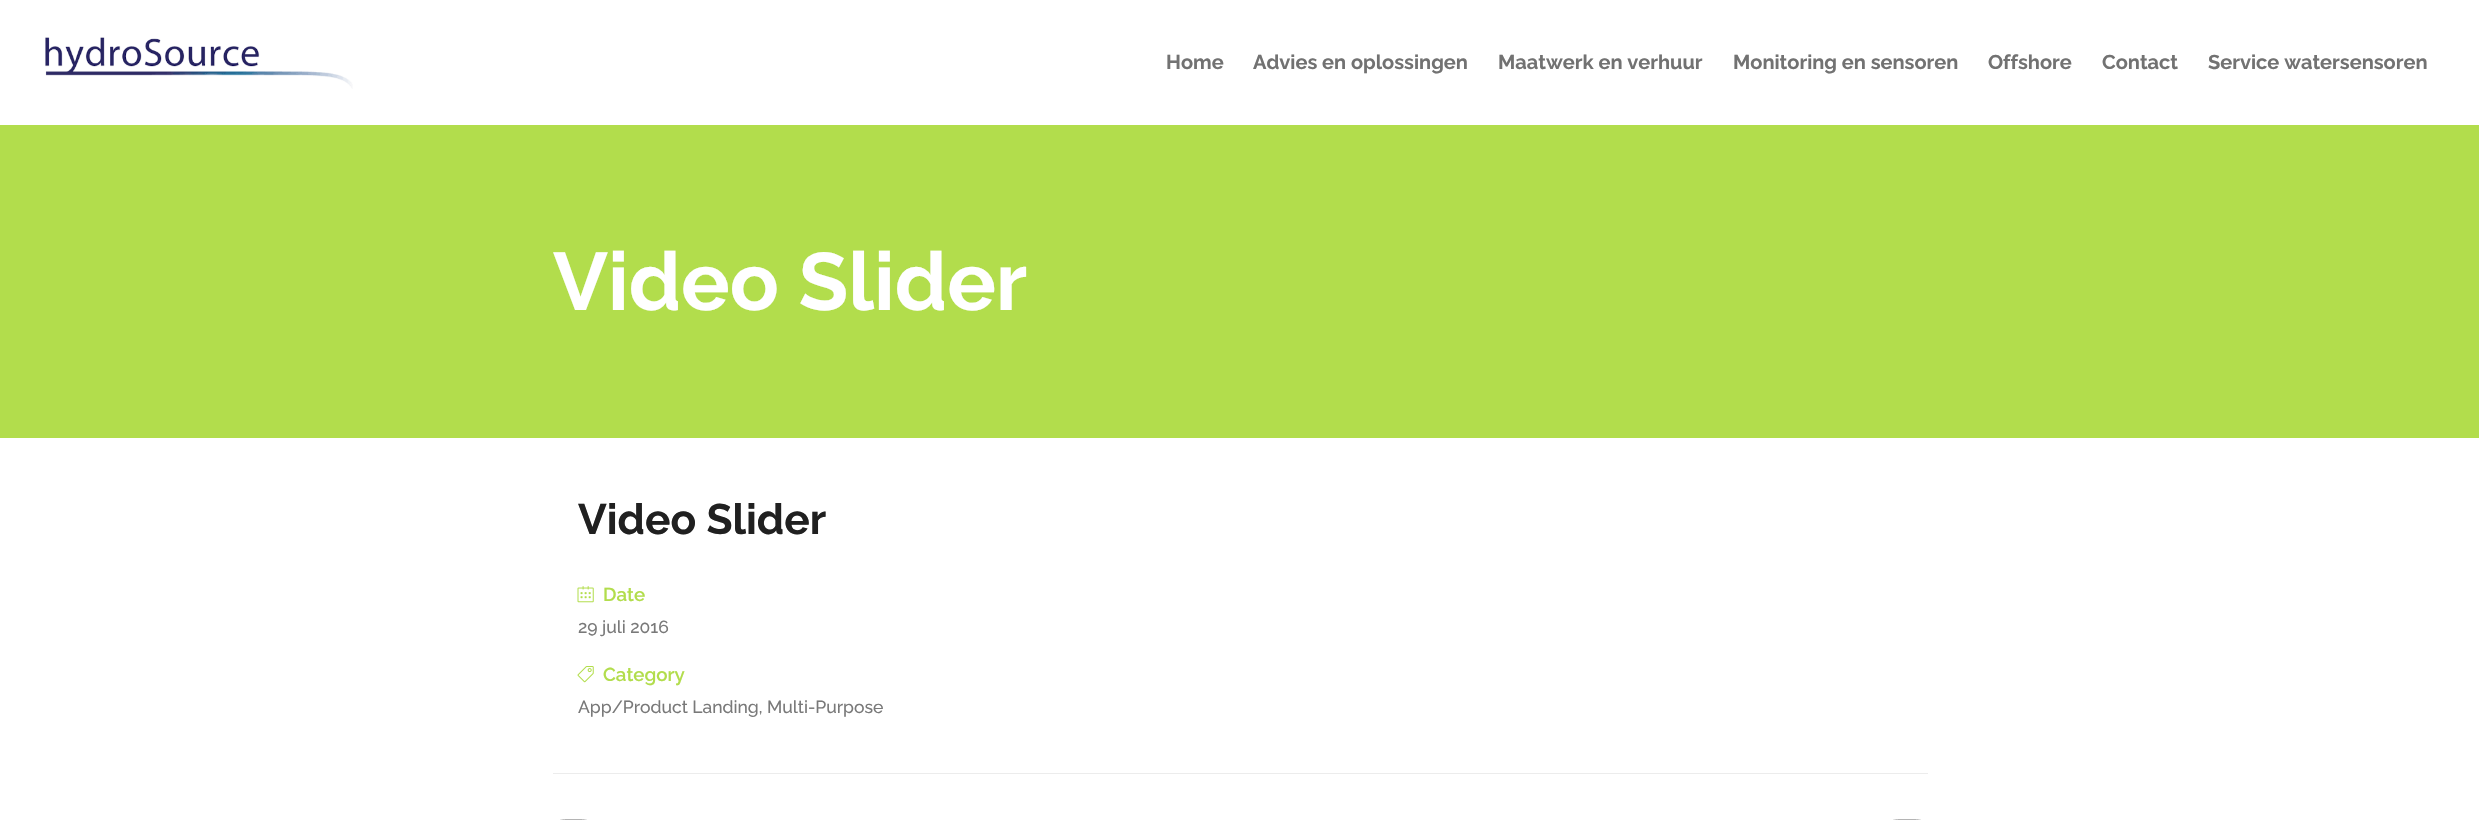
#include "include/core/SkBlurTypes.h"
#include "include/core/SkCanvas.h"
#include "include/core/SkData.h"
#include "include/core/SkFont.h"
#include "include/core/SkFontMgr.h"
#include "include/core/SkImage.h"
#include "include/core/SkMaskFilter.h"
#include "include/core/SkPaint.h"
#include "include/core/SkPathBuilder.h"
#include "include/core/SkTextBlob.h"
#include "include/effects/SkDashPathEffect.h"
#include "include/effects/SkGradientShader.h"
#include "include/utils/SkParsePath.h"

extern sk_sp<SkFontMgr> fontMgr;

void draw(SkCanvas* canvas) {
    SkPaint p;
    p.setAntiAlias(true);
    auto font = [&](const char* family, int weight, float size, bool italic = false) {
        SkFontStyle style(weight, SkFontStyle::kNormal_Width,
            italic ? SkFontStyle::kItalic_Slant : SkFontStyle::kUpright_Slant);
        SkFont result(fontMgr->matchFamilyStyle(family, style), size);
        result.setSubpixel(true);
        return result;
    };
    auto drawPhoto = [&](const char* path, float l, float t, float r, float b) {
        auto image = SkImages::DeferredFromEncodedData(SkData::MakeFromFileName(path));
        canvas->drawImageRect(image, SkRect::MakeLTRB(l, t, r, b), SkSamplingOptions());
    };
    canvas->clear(0xFFFFFFFF);
    drawPhoto("media/1.png", 45, 37, 353, 89);
    auto font1 = font("Raleway", 700, 20);
    p.setColor(0xFF727272);
    {
        const struct { const char* s; float x, y; } items[] = {
            {"Home", 1166, 69},
            {"Advies en oplossingen", 1253, 69},
            {"Maatwerk en verhuur", 1498, 69},
            {"Monitoring en sensoren", 1733, 69},
            {"Offshore", 1988, 69},
            {"Contact", 2102, 69},
            {"Service watersensoren", 2208, 69},
        };
        for (auto [s, x, y] : items) {
            canvas->drawString(s, x, y, font1, p);
        }
    }
    p.setColor(0xFFB2DD4C);
    canvas->drawRect(SkRect::MakeLTRB(0, 125, 2479, 438), p);
    auto font2 = font("Raleway", 700, 81.25f);
    p.setColor(0xFFFFFFFF);
    canvas->drawString("Video Slider", 553, 310, font2, p);
    auto font3 = font("Raleway", 700, 42.5f);
    p.setColor(0xFF202020);
    canvas->drawString("Video Slider", 578, 534, font3, p);
    drawPhoto("media/2.png", 577, 586, 594, 603);
    auto font4 = font("Raleway", 600, 18.75f);
    p.setColor(0xFFB2DD4C);
    canvas->drawString("Date", 603, 601, font4, p);
    auto font5 = font("Raleway", 500, 17.5f);
    p.setColor(0xFF797979);
    canvas->drawString("29 juli 2016", 578, 633, font5, p);
    drawPhoto("media/3.png", 577, 666, 594, 683);
    p.setColor(0xFFB2DD4C);
    canvas->drawString("Category", 603, 681, font4, p);
    p.setColor(0xFF797979);
    canvas->drawString("App/Product Landing, Multi-Purpose", 578, 713, font5, p);
    p.setColor(0xFFECECEC);
    canvas->drawRect(SkRect::MakeLTRB(553, 773, 1928, 774), p);
    p.setStyle(SkPaint::kStroke_Style);
    p.setStrokeWidth(1);
    p.setColor(0xFFB4B4B4);
    canvas->drawRoundRect(SkRect::MakeLTRB(553.5f, 819.5f, 593.5f, 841.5f), 20, 20, p);
    canvas->drawRoundRect(SkRect::MakeLTRB(1886.5f, 819.5f, 1927.5f, 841.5f), 20, 20, p);
}
